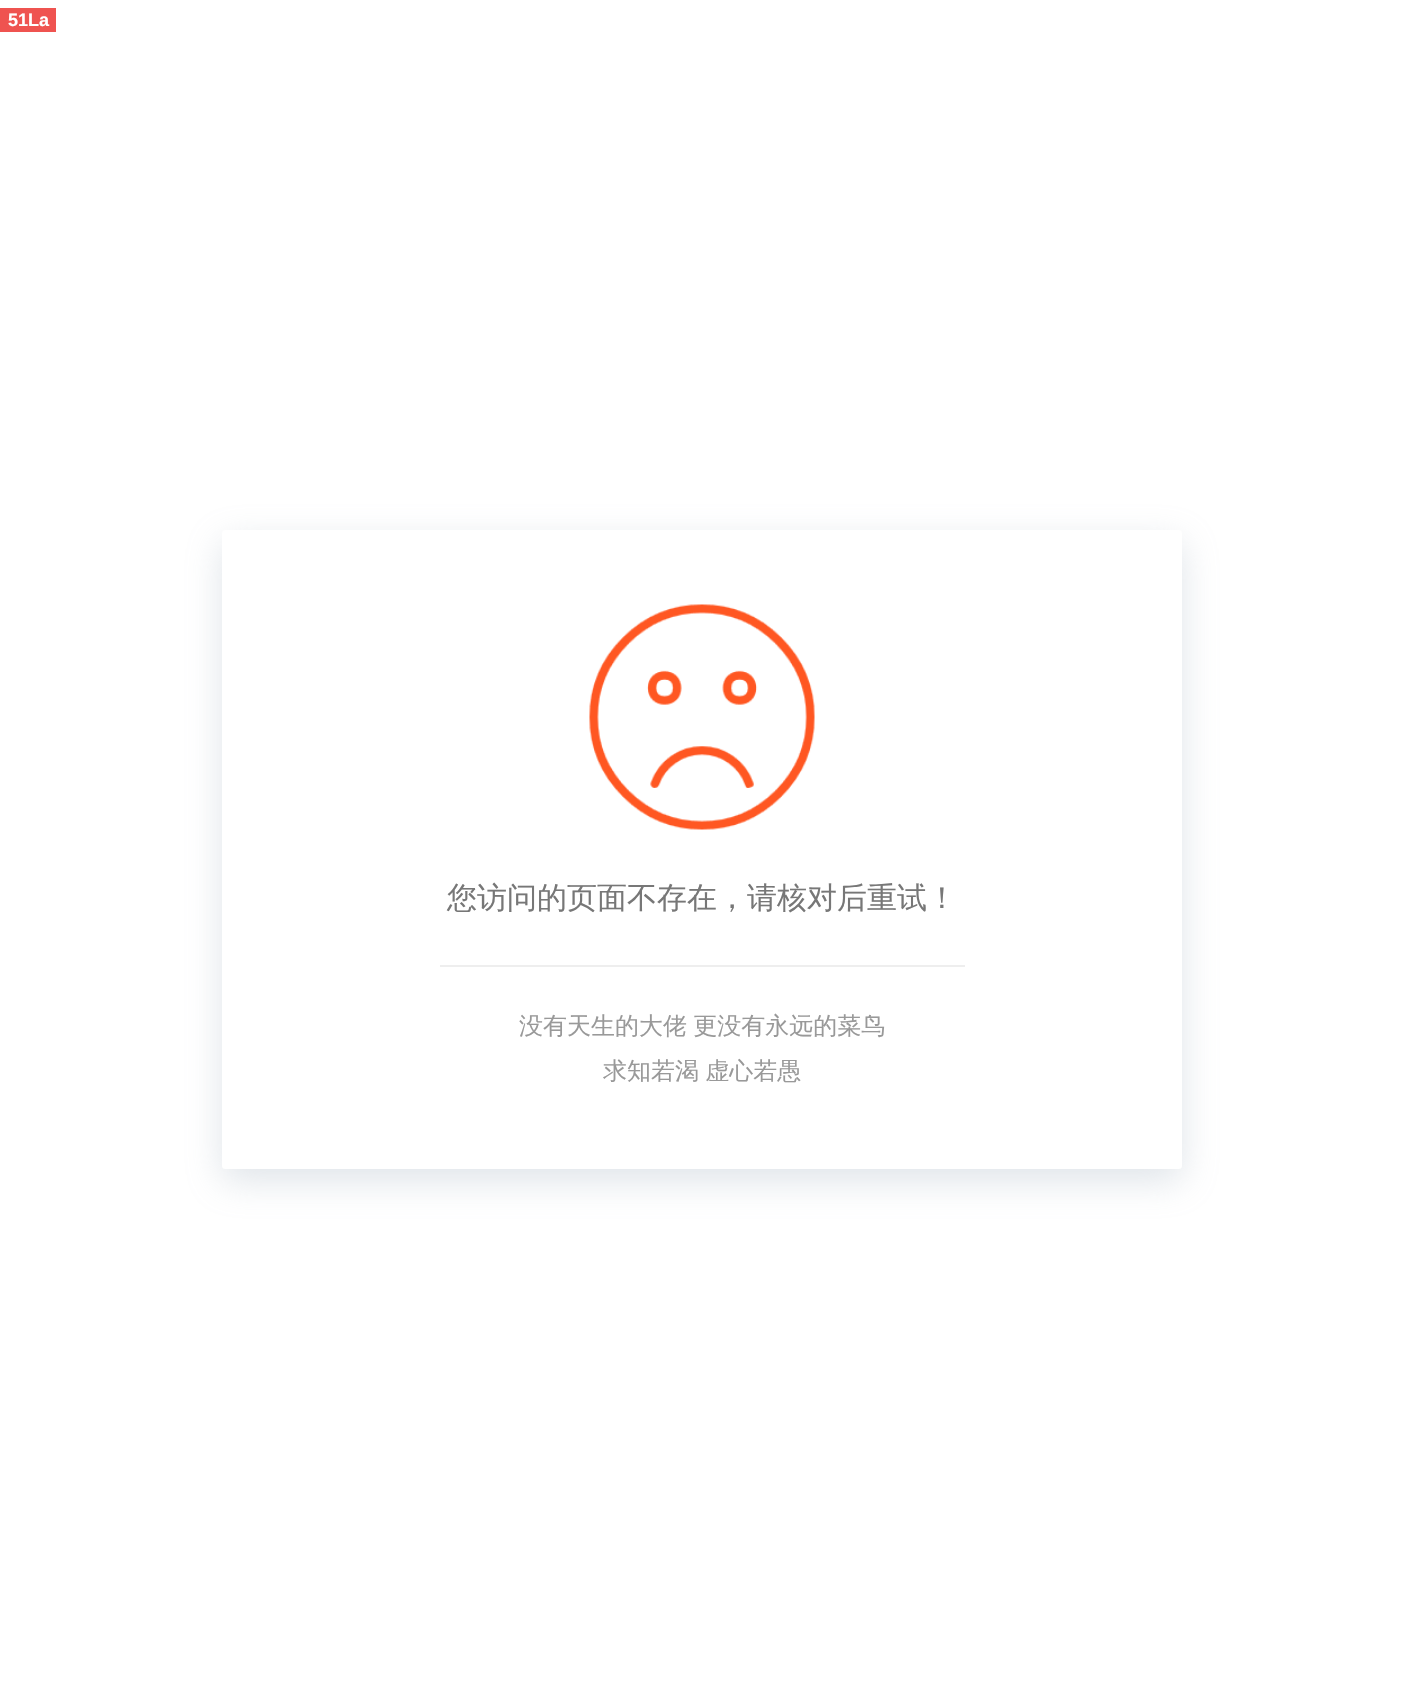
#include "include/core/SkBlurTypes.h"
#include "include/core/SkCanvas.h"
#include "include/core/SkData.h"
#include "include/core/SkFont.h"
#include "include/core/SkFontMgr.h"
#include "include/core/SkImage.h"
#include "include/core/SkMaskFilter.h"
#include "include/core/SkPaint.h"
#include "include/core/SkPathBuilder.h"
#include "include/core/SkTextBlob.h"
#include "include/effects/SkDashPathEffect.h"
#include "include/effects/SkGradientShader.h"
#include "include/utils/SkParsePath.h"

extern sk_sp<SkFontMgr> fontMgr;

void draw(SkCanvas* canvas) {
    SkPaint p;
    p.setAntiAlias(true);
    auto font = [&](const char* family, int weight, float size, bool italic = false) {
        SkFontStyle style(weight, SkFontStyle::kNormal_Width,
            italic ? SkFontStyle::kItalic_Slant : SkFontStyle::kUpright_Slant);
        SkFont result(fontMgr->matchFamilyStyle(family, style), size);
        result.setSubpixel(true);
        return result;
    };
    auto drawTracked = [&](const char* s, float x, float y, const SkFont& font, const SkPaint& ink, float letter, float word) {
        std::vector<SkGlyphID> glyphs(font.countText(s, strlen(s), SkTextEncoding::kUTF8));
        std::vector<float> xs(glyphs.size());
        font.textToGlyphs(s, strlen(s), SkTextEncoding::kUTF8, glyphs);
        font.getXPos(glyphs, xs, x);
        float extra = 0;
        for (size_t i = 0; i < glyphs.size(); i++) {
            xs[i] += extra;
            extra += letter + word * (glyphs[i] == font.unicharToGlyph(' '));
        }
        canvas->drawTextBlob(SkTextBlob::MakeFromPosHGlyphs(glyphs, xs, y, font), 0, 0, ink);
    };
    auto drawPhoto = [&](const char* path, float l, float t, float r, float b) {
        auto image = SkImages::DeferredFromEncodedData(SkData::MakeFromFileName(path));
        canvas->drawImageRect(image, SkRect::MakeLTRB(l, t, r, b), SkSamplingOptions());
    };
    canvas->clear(0xFFFFFFFF);
    p.setColor(0xFFEF5350);
    canvas->drawRect(SkRect::MakeLTRB(0, 8, 56, 32), p);
    auto font1 = font("Liberation Sans", 700, 18);
    p.setColor(0xFFFFFFFF);
    canvas->drawString("51La", 8, 26, font1, p);
    p.setColor(0x59A3B1BF);
    p.setMaskFilter(SkMaskFilter::MakeBlur(kNormal_SkBlurStyle, 18));
    canvas->drawRoundRect(SkRect::MakeLTRB(222, 542, 1182, 1181), 3, 3, p);
    p.setMaskFilter(nullptr);
    p.setColor(0xFFFFFFFF);
    canvas->drawRoundRect(SkRect::MakeLTRB(222, 530, 1182, 1169), 3, 3, p);
    drawPhoto("media/1.png", 589, 604, 815, 830);
    auto font2 = font("WenQuanYi Zen Hei", 500, 30);
    p.setColor(0xFF777777);
    canvas->drawString("您访问的页面不存在，请核对后重试！", 447, 908, font2, p);
    p.setColor(0xFFEEEEEE);
    canvas->drawRect(SkRect::MakeLTRB(440, 965, 965, 967), p);
    auto font3 = font("WenQuanYi Zen Hei", 500, 24);
    p.setColor(0xFF999999);
    drawTracked("没有天生的大佬 更没有永远的菜鸟", 519, 1034, font3, p, 0, -1);
    drawTracked("求知若渴 虚心若愚", 603, 1079, font3, p, 0, -1);
}
